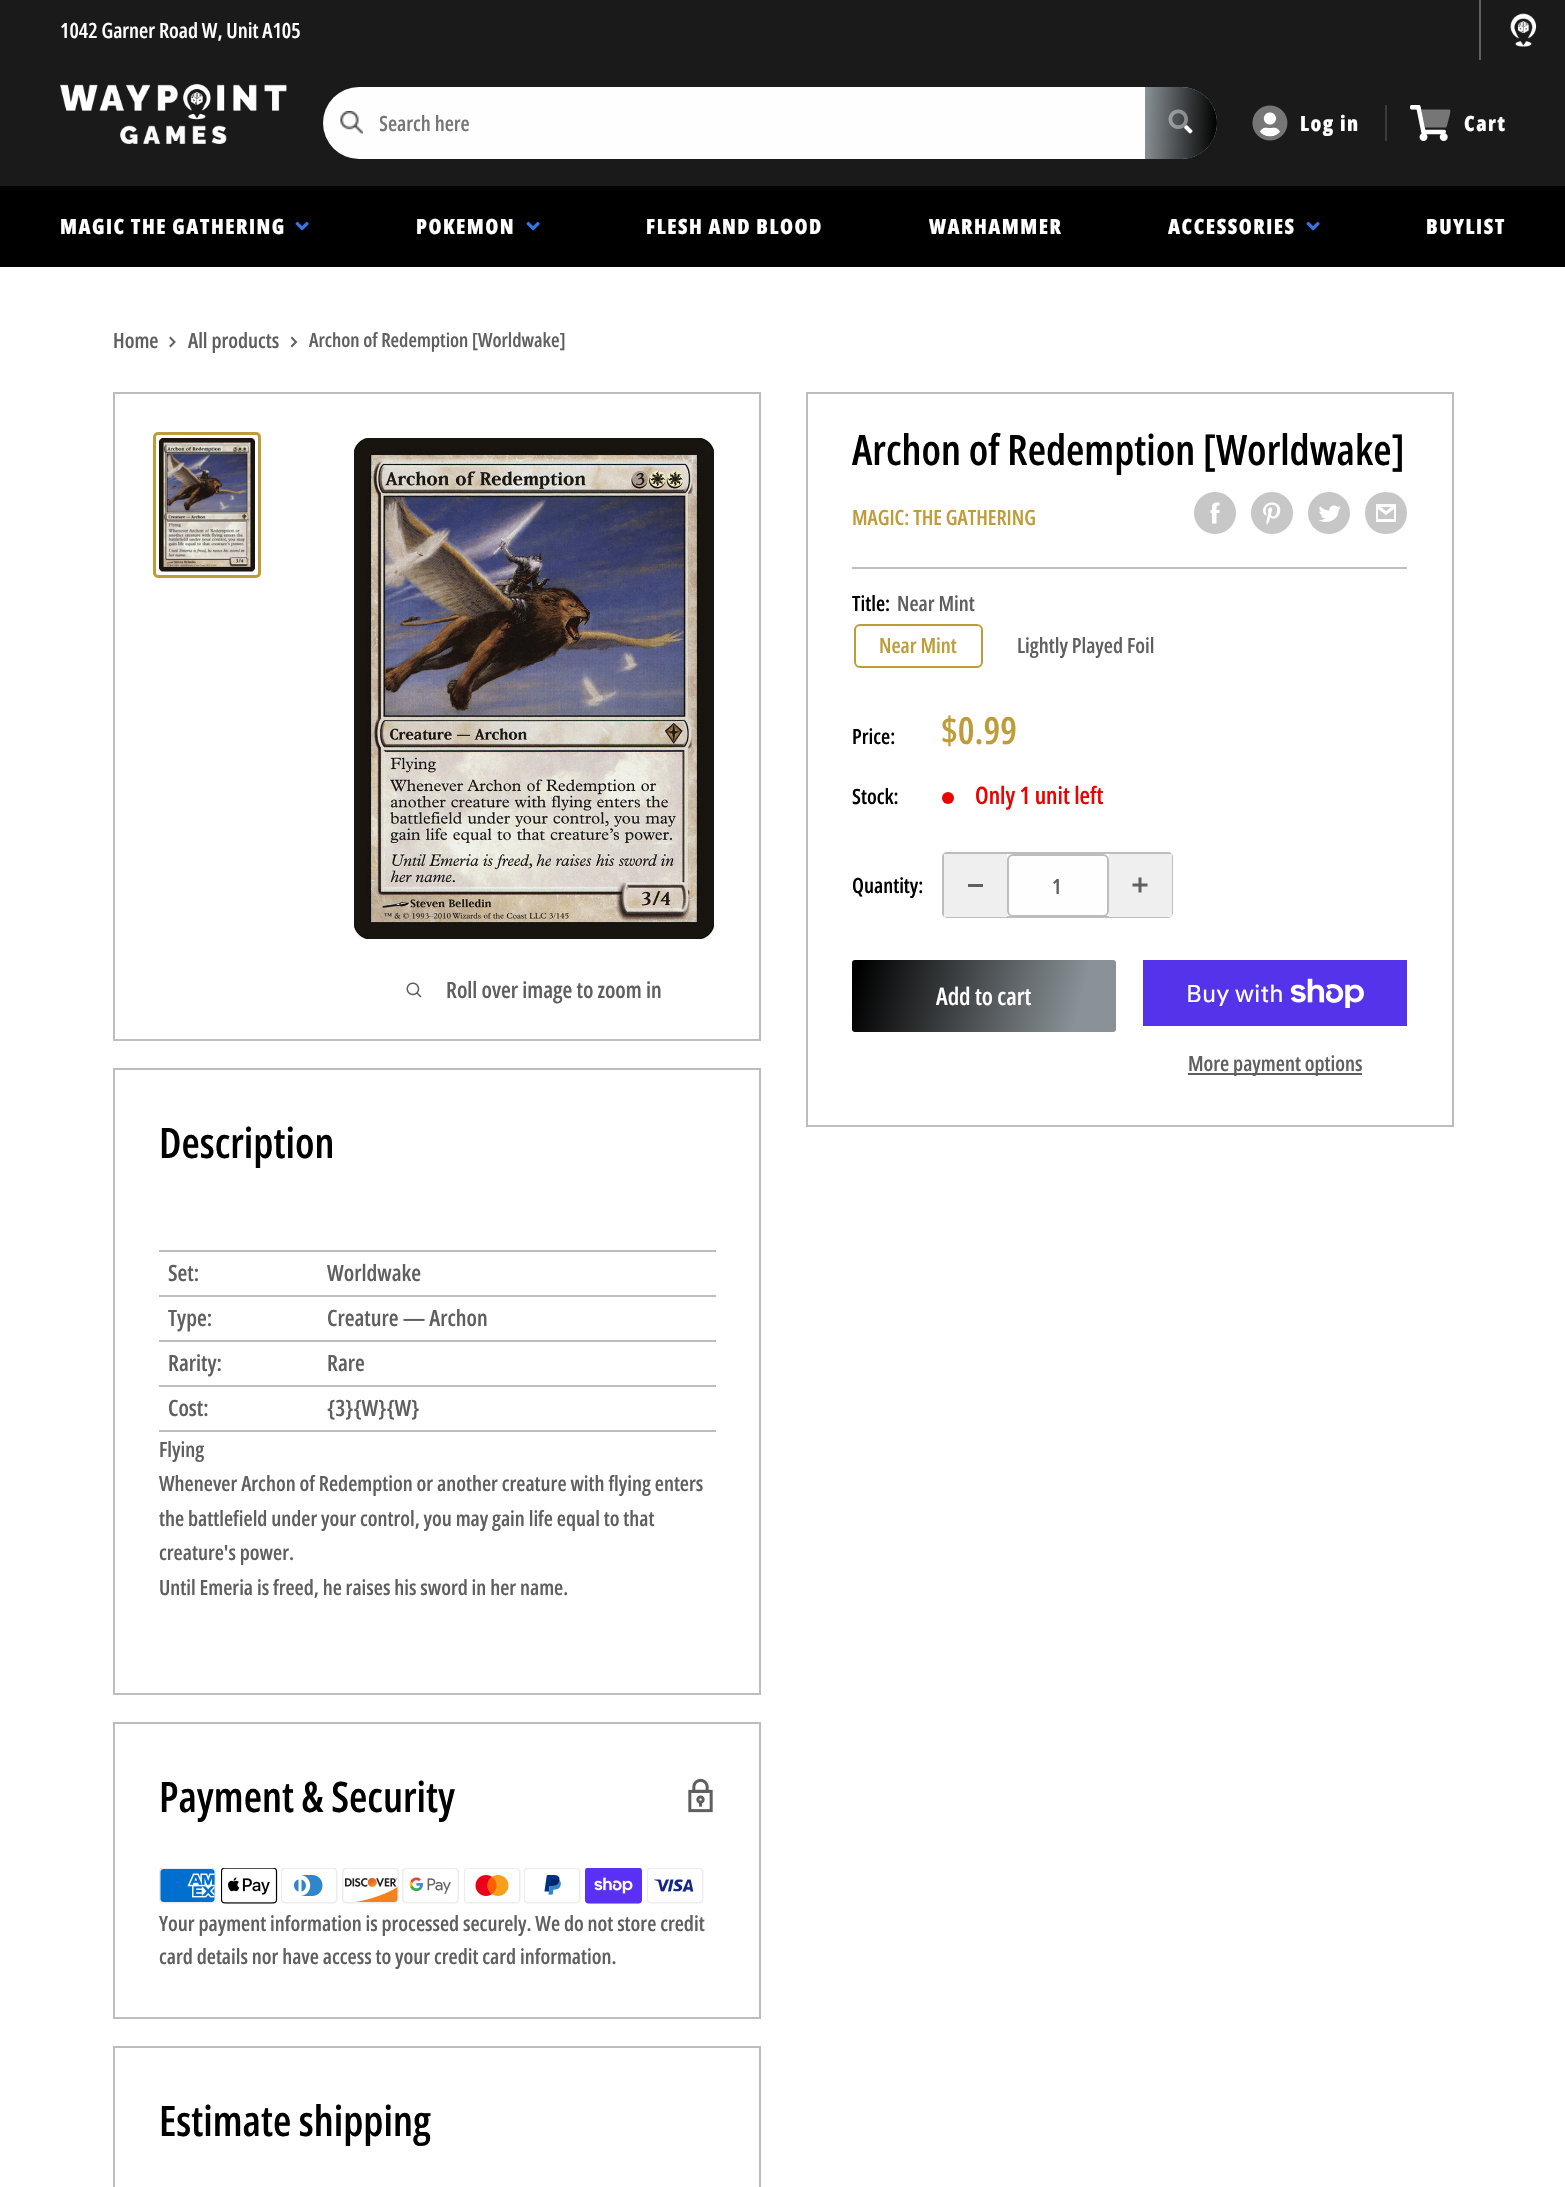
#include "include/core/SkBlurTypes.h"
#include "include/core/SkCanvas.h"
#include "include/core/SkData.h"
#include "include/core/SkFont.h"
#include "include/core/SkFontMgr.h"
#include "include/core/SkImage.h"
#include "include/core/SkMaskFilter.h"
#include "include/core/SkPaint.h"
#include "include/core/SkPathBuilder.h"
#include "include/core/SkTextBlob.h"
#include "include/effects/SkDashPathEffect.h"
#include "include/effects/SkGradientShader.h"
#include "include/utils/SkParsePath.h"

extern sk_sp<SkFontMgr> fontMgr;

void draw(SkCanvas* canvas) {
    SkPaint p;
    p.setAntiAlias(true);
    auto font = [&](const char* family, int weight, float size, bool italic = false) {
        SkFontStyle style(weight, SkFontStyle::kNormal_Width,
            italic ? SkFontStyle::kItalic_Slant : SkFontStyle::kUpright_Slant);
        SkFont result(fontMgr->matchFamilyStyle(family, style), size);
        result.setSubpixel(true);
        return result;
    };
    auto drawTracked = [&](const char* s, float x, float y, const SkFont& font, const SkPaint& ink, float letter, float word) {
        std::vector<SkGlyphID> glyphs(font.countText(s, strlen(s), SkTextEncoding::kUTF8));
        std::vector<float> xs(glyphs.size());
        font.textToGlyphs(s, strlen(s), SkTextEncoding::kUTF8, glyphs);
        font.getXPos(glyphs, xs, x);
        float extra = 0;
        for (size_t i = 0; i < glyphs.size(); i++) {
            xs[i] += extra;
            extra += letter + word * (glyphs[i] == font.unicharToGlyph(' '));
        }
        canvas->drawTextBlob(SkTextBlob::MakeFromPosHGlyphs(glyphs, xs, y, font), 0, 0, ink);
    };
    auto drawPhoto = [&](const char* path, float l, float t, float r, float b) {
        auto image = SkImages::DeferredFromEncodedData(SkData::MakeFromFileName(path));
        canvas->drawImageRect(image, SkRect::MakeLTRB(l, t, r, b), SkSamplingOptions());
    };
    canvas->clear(0xFFFFFFFF);
    p.setColor(0xFF1A1A1A);
    canvas->drawRect(SkRect::MakeLTRB(0, 0, 1565, 186), p);
    auto font1 = font("Open Sans Condensed", 600, 21);
    p.setColor(0xFFFFFFFF);
    canvas->drawString("1042 Garner Road W, Unit A105", 60, 38, font1, p);
    p.setColor(0xFF5F5F5F);
    canvas->drawRect(SkRect::MakeLTRB(1479, 0, 1481, 60), p);
    drawPhoto("media/1.png", 1510, 13, 1537, 47);
    drawPhoto("media/2.png", 60, 84, 287, 144);
    p.setColor(0xFFFEFEFE);
    canvas->drawRoundRect(SkRect::MakeLTRB(323, 87, 1217, 159), 36, 36, p);
    drawPhoto("media/3.png", 340, 111, 363, 134);
    canvas->save();
    canvas->clipRect(SkRect::MakeLTRB(380, 110, 1116, 138));
    p.setColor(0xFF757575);
    canvas->drawString("Search here", 379, 131, font1, p);
    canvas->restore();
    {
        const SkColor colors[] = {0xFF000000, 0xFF8A9297};
        const float stops[] = {0, 1};
        const SkPoint ends[] = {{1217, 124}, {1144, 122}};
        p.setShader(SkGradientShader::MakeLinear(ends, colors, stops, 2, SkTileMode::kClamp));
        p.setAlpha(255);
    }
    canvas->drawPath(SkPathBuilder().moveTo(1145, 87).lineTo(1181, 87).cubicTo(1201, 87, 1217, 103, 1217, 123).cubicTo(1217, 143, 1201, 159, 1181, 159).lineTo(1145, 159).close().detach(), p);
    drawPhoto("media/5.png", 1184, 125, 1193, 134);
    drawPhoto("media/4.png", 1168, 109, 1188, 129);
    p.setShader(nullptr);
    p.setColor(0xFF3A3A3A);
    canvas->drawRect(SkRect::MakeLTRB(1385, 105, 1387, 141), p);
    drawPhoto("media/7.png", 1259, 112, 1281, 137);
    drawPhoto("media/6.png", 1252, 105, 1288, 141);
    auto font2 = font("Open Sans Condensed", 800, 21);
    p.setColor(0xFFFFFFFF);
    drawTracked("Log in", 1300, 131, font2, p, 1.5f, 0);
    drawPhoto("media/8.png", 1410, 105, 1448, 141);
    p.setColor(0x66FFFFFF);
    canvas->drawPath(SkPathBuilder().moveTo(1449, 109.5f).cubicTo(1451.5f, 109.5f, 1450, 112.5f, 1450, 114).lineTo(1447.5f, 123.5f).cubicTo(1446.5f, 128, 1447, 127.5f, 1442, 127.5f).lineTo(1425, 127.5f).lineTo(1421, 109.5f).close().detach(), p);
    p.setColor(0xFFFFFFFF);
    drawTracked("Cart", 1464, 131, font2, p, 1.5f, 0);
    p.setColor(0xFF000000);
    canvas->drawRect(SkRect::MakeLTRB(0, 186, 1565, 267), p);
    p.setColor(0xFFFFFFFF);
    drawTracked("MAGIC THE GATHERING", 60, 234, font2, p, 1.5f, 0);
    drawPhoto("media/9.png", 295, 221, 309, 231);
    drawTracked("POKEMON", 416, 234, font2, p, 1.5f, 0);
    drawPhoto("media/9.png", 526, 221, 540, 231);
    {
        const struct { const char* s; float x, y; } items[] = {
            {"FLESH AND BLOOD", 646, 234},
            {"WARHAMMER", 929, 234},
            {"ACCESSORIES", 1168, 234},
        };
        for (auto [s, x, y] : items) {
            drawTracked(s, x, y, font2, p, 1.5f, 0);
        }
    }
    drawPhoto("media/9.png", 1306, 221, 1320, 231);
    drawTracked("BUYLIST", 1426, 234, font2, p, 1.5f, 0);
    p.setColor(0xFF5F5F5F);
    canvas->drawString("Home", 113, 348, font1, p);
    p.setStyle(SkPaint::kStroke_Style);
    p.setStrokeWidth(2);
    p.setStrokeCap(SkPaint::kSquare_Cap);
    canvas->drawPath(SkPathBuilder().moveTo(170.5f, 338).lineTo(174.5f, 342).lineTo(170.5f, 346).detach(), p);
    p.setStyle(SkPaint::kFill_Style);
    canvas->drawString("All products", 188, 348, font1, p);
    p.setStyle(SkPaint::kStroke_Style);
    canvas->drawPath(SkPathBuilder().moveTo(292, 338).lineTo(296, 342).lineTo(292, 346).detach(), p);
    auto font3 = font("Open Sans Condensed", 600, 19.5f);
    p.setStyle(SkPaint::kFill_Style);
    canvas->drawString("Archon of Redemption [Worldwake]", 309, 347, font3, p);
    p.setStyle(SkPaint::kStroke_Style);
    p.setStrokeCap(SkPaint::kButt_Cap);
    p.setColor(0xFFBDBDBD);
    canvas->drawRect(SkRect::MakeLTRB(114, 393, 760, 1040), p);
    p.setStrokeWidth(3);
    p.setColor(0xFFBE9C39);
    canvas->drawRoundRect(SkRect::MakeLTRB(154.5f, 433.5f, 259.5f, 576.5f), 3.5f, 3.5f, p);
    drawPhoto("media/10.png", 159, 438, 255, 572);
    drawPhoto("media/11.png", 354, 438, 714, 939);
    drawPhoto("media/12.png", 406, 982, 422, 998);
    auto font4 = font("Open Sans Condensed", 600, 22.5f);
    p.setStyle(SkPaint::kFill_Style);
    p.setColor(0xFF5F5F5F);
    canvas->drawString("Roll over image to zoom in", 446, 998, font4, p);
    p.setStyle(SkPaint::kStroke_Style);
    p.setStrokeWidth(2);
    p.setColor(0xFFBDBDBD);
    canvas->drawRect(SkRect::MakeLTRB(807, 393, 1453, 1126), p);
    auto font5 = font("Open Sans Condensed", 600, 42);
    p.setStyle(SkPaint::kFill_Style);
    p.setColor(0xFF000000);
    canvas->drawString("Archon of Redemption [Worldwake]", 852, 465, font5, p);
    p.setColor(0xFFBE9C39);
    canvas->drawString("MAGIC: THE GATHERING", 852, 525, font1, p);
    drawPhoto("media/13.png", 1194, 492, 1236, 534);
    drawPhoto("media/14.png", 1251, 492, 1293, 534);
    drawPhoto("media/15.png", 1308, 492, 1350, 534);
    p.setColor(0xFFC7C7C7);
    canvas->drawPath(SkPathBuilder().moveTo(1386, 534).cubicTo(1358, 534, 1358, 492, 1386, 492).cubicTo(1414, 492, 1414, 534, 1386, 534).close().moveTo(1381, 507).lineTo(1391, 507).lineTo(1386, 511).close().moveTo(1394, 509).lineTo(1394, 519).lineTo(1378, 519).lineTo(1378, 509).lineTo(1386, 515).close().moveTo(1396, 504).lineTo(1376, 504).lineTo(1376, 522).lineTo(1396, 522).close().detach(), p);
    p.setColor(0xFFBDBDBD);
    canvas->drawRect(SkRect::MakeLTRB(852, 567, 1407, 569), p);
    p.setColor(0xFF000000);
    canvas->drawString("Title:", 852, 611, font1, p);
    p.setColor(0xFF5F5F5F);
    canvas->drawString("Near Mint", 897, 611, font1, p);
    p.setStyle(SkPaint::kStroke_Style);
    p.setColor(0xFFBE9C39);
    canvas->drawRoundRect(SkRect::MakeLTRB(855, 625, 982, 667), 5, 5, p);
    p.setStyle(SkPaint::kFill_Style);
    canvas->drawString("Near Mint", 879, 653, font1, p);
    p.setColor(0xFF5F5F5F);
    canvas->drawString("Lightly Played Foil", 1017, 653, font1, p);
    p.setColor(0xFF000000);
    canvas->drawString("Price:", 852, 744, font1, p);
    auto font6 = font("Open Sans Condensed", 600, 37.5f);
    p.setColor(0xFFBE9C39);
    canvas->drawString("$0.99", 941, 744, font6, p);
    p.setColor(0xFF000000);
    canvas->drawString("Stock:", 852, 804, font1, p);
    p.setColor(0xFFEE0000);
    canvas->drawCircle(948, 798, 6, p);
    auto font7 = font("Open Sans Condensed", 600, 24);
    canvas->drawString("Only 1 unit left", 975, 804, font7, p);
    p.setColor(0xFF000000);
    canvas->drawString("Quantity:", 852, 893, font1, p);
    p.setStyle(SkPaint::kStroke_Style);
    p.setColor(0xFFBDBDBD);
    canvas->drawRoundRect(SkRect::MakeLTRB(943, 853, 1172, 917), 4, 4, p);
    p.setStyle(SkPaint::kFill_Style);
    p.setColor(0xFFEFEFEF);
    canvas->drawRect(SkRect::MakeLTRB(944, 854, 1007, 917), p);
    p.setColor(0xFF606060);
    canvas->drawRect(SkRect::MakeLTRB(968, 884, 983, 887), p);
    p.setColor(0xFFFEFEFE);
    canvas->drawRoundRect(SkRect::MakeLTRB(1008, 855, 1108, 916), 5, 5, p);
    p.setStyle(SkPaint::kStroke_Style);
    p.setColor(0xFFBDBDBD);
    canvas->drawRoundRect(SkRect::MakeLTRB(1008, 855, 1108, 916), 5, 5, p);
    p.setStyle(SkPaint::kFill_Style);
    p.setColor(0xFF5F5F5F);
    canvas->drawString("1", 1052, 894, font1, p);
    p.setColor(0xFFEFEFEF);
    canvas->drawRect(SkRect::MakeLTRB(1109, 854, 1172, 917), p);
    drawPhoto("media/16.png", 1132, 877, 1148, 893);
    {
        const SkColor colors[] = {0xFF000000, 0xFF8A9297};
        const float stops[] = {0.03f, 0.85f};
        const SkPoint ends[] = {{851, 964}, {1117, 1028}};
        p.setShader(SkGradientShader::MakeLinear(ends, colors, stops, 2, SkTileMode::kClamp));
        p.setAlpha(255);
    }
    canvas->drawRoundRect(SkRect::MakeLTRB(852, 960, 1116, 1032), 3, 3, p);
    p.setShader(nullptr);
    p.setColor(0xFFFFFFFF);
    canvas->drawString("Add to cart", 936, 1005, font7, p);
    p.setColor(0xFF5433EB);
    canvas->drawRect(SkRect::MakeLTRB(1143, 960, 1407, 1026), p);
    auto font8 = font("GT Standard", 400, 24);
    p.setColor(0xFFFFFFFF);
    canvas->drawString("Buy with", 1186, 1002, font8, p);
    drawPhoto("media/17.png", 1290, 978, 1364, 1008);
    p.setColor(0xFF5F5F5F);
    canvas->drawRect(SkRect::MakeLTRB(1188, 1073, 1362, 1075), p);
    canvas->drawString("More payment options", 1188, 1071, font1, p);
    p.setStyle(SkPaint::kStroke_Style);
    p.setColor(0xFFBDBDBD);
    canvas->drawRect(SkRect::MakeLTRB(114, 1069, 760, 1694), p);
    p.setStyle(SkPaint::kFill_Style);
    p.setColor(0xFF000000);
    canvas->drawString("Description", 159, 1158, font5, p);
    p.setColor(0xFFBDBDBD);
    canvas->drawRect(SkRect::MakeLTRB(159, 1250, 716, 1252), p);
    p.setColor(0xFF5F5F5F);
    canvas->drawString("Set:", 168, 1281, font4, p);
    canvas->drawString("Worldwake", 327, 1281, font4, p);
    p.setColor(0xFFBDBDBD);
    canvas->drawRect(SkRect::MakeLTRB(159, 1295, 716, 1297), p);
    p.setColor(0xFF5F5F5F);
    canvas->drawString("Type:", 168, 1326, font4, p);
    canvas->drawString("Creature — Archon", 327, 1326, font4, p);
    p.setColor(0xFFBDBDBD);
    canvas->drawRect(SkRect::MakeLTRB(159, 1340, 716, 1342), p);
    p.setColor(0xFF5F5F5F);
    canvas->drawString("Rarity:", 168, 1371, font4, p);
    canvas->drawString("Rare", 327, 1371, font4, p);
    p.setColor(0xFFBDBDBD);
    canvas->drawRect(SkRect::MakeLTRB(159, 1385, 716, 1387), p);
    canvas->drawRect(SkRect::MakeLTRB(159, 1430, 716, 1432), p);
    p.setColor(0xFF5F5F5F);
    canvas->drawString("Cost:", 168, 1416, font4, p);
    canvas->drawString("{3}{W}{W}", 327, 1416, font4, p);
    {
        const struct { const char* s; float x, y; } items[] = {
            {"Flying", 159, 1457},
            {"Whenever Archon of Redemption or another creature with flying enters", 159, 1491},
            {"the battlefield under your control, you may gain life equal to that", 159, 1526},
            {"creature's power.", 159, 1560},
            {"Until Emeria is freed, he raises his sword in her name.", 159, 1595},
        };
        for (auto [s, x, y] : items) {
            canvas->drawString(s, x, y, font1, p);
        }
    }
    p.setStyle(SkPaint::kStroke_Style);
    p.setColor(0xFFBDBDBD);
    canvas->drawRect(SkRect::MakeLTRB(114, 1723, 760, 2018), p);
    p.setStyle(SkPaint::kFill_Style);
    p.setColor(0xFF000000);
    canvas->drawString("Payment & Security", 159, 1812, font5, p);
    drawPhoto("media/18.png", 688, 1778, 713, 1813);
    drawPhoto("media/19.png", 159, 1868, 216, 1904);
    drawPhoto("media/20.png", 221, 1868, 278, 1904);
    drawPhoto("media/21.png", 281, 1868, 338, 1904);
    drawPhoto("media/22.png", 342, 1868, 399, 1904);
    drawPhoto("media/23.png", 402, 1868, 459, 1904);
    drawPhoto("media/24.png", 464, 1868, 521, 1904);
    drawPhoto("media/25.png", 524, 1868, 581, 1904);
    drawPhoto("media/26.png", 585, 1868, 642, 1904);
    drawPhoto("media/27.png", 647, 1868, 704, 1904);
    p.setColor(0xFF5F5F5F);
    canvas->drawString("Your payment information is processed securely. We do not store credit", 159, 1931, font1, p);
    canvas->drawString("card details nor have access to your credit card information.", 159, 1964, font1, p);
    p.setStyle(SkPaint::kStroke_Style);
    p.setColor(0xFFBDBDBD);
    canvas->drawRect(SkRect::MakeLTRB(114, 2047, 760, 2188), p);
    p.setStyle(SkPaint::kFill_Style);
    p.setColor(0xFF000000);
    canvas->drawString("Estimate shipping", 159, 2136, font5, p);
}
